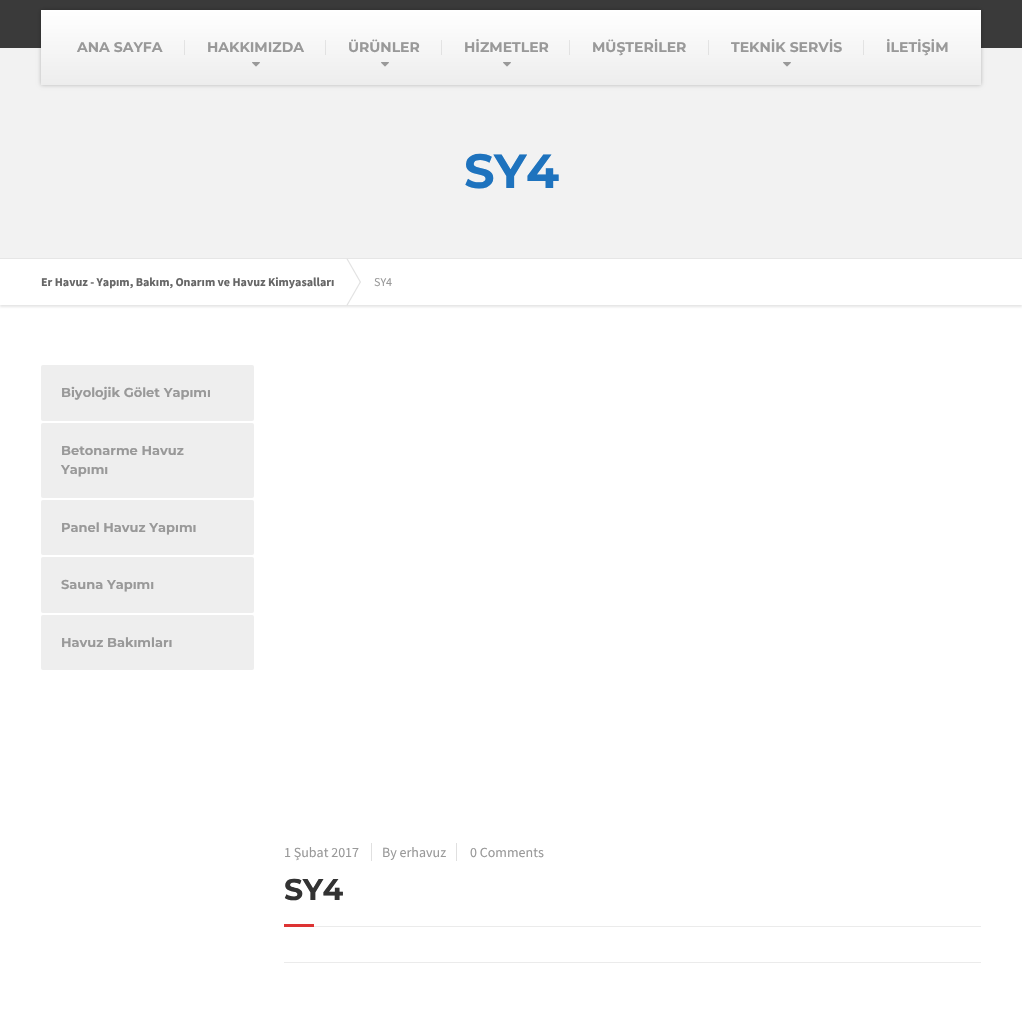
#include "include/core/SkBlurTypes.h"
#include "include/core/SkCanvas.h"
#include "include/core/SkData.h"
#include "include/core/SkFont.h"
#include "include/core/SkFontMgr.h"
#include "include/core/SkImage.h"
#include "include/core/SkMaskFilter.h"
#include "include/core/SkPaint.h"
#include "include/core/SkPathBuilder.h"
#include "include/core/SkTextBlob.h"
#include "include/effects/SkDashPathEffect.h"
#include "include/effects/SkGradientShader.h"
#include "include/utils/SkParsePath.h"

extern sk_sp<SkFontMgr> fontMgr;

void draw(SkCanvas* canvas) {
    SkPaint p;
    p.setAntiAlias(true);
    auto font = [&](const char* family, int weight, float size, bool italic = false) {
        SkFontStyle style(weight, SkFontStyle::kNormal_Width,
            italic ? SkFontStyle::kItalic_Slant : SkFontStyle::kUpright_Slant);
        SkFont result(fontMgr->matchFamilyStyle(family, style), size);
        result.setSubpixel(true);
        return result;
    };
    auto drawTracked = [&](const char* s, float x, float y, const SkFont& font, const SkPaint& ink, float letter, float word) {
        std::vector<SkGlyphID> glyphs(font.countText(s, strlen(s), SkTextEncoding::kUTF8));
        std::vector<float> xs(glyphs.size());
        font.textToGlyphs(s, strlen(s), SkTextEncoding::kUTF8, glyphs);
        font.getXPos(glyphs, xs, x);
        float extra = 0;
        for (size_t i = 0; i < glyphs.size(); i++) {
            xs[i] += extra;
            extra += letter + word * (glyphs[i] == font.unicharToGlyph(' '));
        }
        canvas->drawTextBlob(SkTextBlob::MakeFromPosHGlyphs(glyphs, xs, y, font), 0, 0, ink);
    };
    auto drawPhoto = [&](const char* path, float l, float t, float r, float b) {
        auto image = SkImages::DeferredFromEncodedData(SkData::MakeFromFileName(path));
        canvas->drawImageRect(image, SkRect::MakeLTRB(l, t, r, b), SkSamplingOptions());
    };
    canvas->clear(0xFFFFFFFF);
    p.setColor(0xFF3A3A3A);
    canvas->drawRect(SkRect::MakeLTRB(0, 0, 1022, 48), p);
    p.setColor(0xFFF2F2F2);
    canvas->drawRect(SkRect::MakeLTRB(0, 48, 1022, 258), p);
    p.setColor(0x40000000);
    p.setMaskFilter(SkMaskFilter::MakeBlur(kNormal_SkBlurStyle, 2));
    canvas->drawRect(SkRect::MakeLTRB(41, 10, 981, 85), p);
    p.setMaskFilter(nullptr);
    {
        const SkColor colors[] = {0xFFFFFFFF, 0xFFEDEDED};
        const float stops[] = {0, 1};
        const SkPoint ends[] = {{511, 10}, {511, 85}};
        p.setShader(SkGradientShader::MakeLinear(ends, colors, stops, 2, SkTileMode::kClamp));
        p.setAlpha(255);
    }
    canvas->drawRect(SkRect::MakeLTRB(41, 10, 981, 85), p);
    {
        const SkColor colors[] = {0xFFEBEBEB, 0xFFDADADA};
        const float stops[] = {0, 1};
        const SkPoint ends[] = {{511, 10}, {511, 85}};
        p.setShader(SkGradientShader::MakeLinear(ends, colors, stops, 2, SkTileMode::kClamp));
        p.setAlpha(255);
    }
    canvas->drawRect(SkRect::MakeLTRB(863, 40, 864, 55), p);
    canvas->drawRect(SkRect::MakeLTRB(708, 40, 709, 55), p);
    canvas->drawRect(SkRect::MakeLTRB(569, 40, 570, 55), p);
    canvas->drawRect(SkRect::MakeLTRB(441, 40, 442, 55), p);
    canvas->drawRect(SkRect::MakeLTRB(325, 40, 326, 55), p);
    canvas->drawRect(SkRect::MakeLTRB(184, 40, 185, 55), p);
    auto font1 = font("Montserrat", 100, 14);
    p.setShader(nullptr);
    p.setColor(0xFF999999);
    canvas->drawString("ANA SAYFA", 77, 52, font1, p);
    canvas->drawString("HAKKIMIZDA", 207, 52, font1, p);
    drawPhoto("media/1.png", 252, 62, 260, 67);
    canvas->drawString("ÜRÜNLER", 348, 52, font1, p);
    drawPhoto("media/1.png", 381, 62, 389, 67);
    canvas->drawString("HİZMETLER", 464, 52, font1, p);
    drawPhoto("media/1.png", 503, 62, 511, 67);
    canvas->drawString("MÜŞTERİLER", 592, 52, font1, p);
    canvas->drawString("TEKNİK SERVİS", 731, 52, font1, p);
    drawPhoto("media/1.png", 783, 62, 791, 67);
    canvas->drawString("İLETİŞİM", 886, 52, font1, p);
    p.setColor(0xFFE6E6E6);
    canvas->drawRect(SkRect::MakeLTRB(0, 258, 1022, 259), p);
    auto font2 = font("Montserrat", 100, 48);
    p.setColor(0xFF1E73BE);
    drawTracked("SY4", 464, 188, font2, p, -0.5f, 0);
    canvas->save();
    canvas->clipRect(SkRect::MakeLTRB(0, 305, 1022, 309));
    p.setColor(0xFFE6E6E6);
    p.setMaskFilter(SkMaskFilter::MakeBlur(kNormal_SkBlurStyle, 1));
    canvas->drawRect(SkRect::MakeLTRB(0, 261, 1022, 307), p);
    p.setMaskFilter(nullptr);
    canvas->restore();
    auto font3 = font("Source Sans Pro", 700, 12);
    p.setColor(0xFF666666);
    canvas->drawString("Er Havuz - Yapım, Bakım, Onarım ve Havuz Kimyasalları", 41, 286, font3, p);
    p.setColor(0xFFE2E2E2);
    canvas->drawPath(SkPathBuilder().moveTo(346.5f, 259).lineTo(347.5f, 258.5f).lineTo(361, 282).lineTo(360, 282.5f).close().detach(), p);
    canvas->drawPath(SkPathBuilder().moveTo(360, 281.5f).lineTo(361, 282).lineTo(347.5f, 305.5f).lineTo(346.5f, 305).close().detach(), p);
    auto font4 = font("Source Sans Pro", 400, 12);
    p.setColor(0xFF999999);
    canvas->drawString("SY4", 374, 286, font4, p);
    p.setColor(0xFFEEEEEE);
    canvas->drawRoundRect(SkRect::MakeLTRB(41, 365, 254, 421), 2, 2, p);
    auto font5 = font("Montserrat", 100, 13);
    p.setColor(0xFF999999);
    canvas->drawString("Biyolojik Gölet Yapımı", 61, 397, font5, p);
    p.setColor(0xFFEEEEEE);
    canvas->drawRoundRect(SkRect::MakeLTRB(41, 423, 254, 498), 2, 2, p);
    p.setColor(0xFF999999);
    canvas->drawString("Betonarme Havuz", 61, 455, font5, p);
    canvas->drawString("Yapımı", 61, 474, font5, p);
    p.setColor(0xFFEEEEEE);
    canvas->drawRoundRect(SkRect::MakeLTRB(41, 500, 254, 555), 2, 2, p);
    p.setColor(0xFF999999);
    canvas->drawString("Panel Havuz Yapımı", 61, 532, font5, p);
    p.setColor(0xFFEEEEEE);
    canvas->drawRoundRect(SkRect::MakeLTRB(41, 557, 254, 613), 2, 2, p);
    p.setColor(0xFF999999);
    canvas->drawString("Sauna Yapımı", 61, 589, font5, p);
    p.setColor(0xFFEEEEEE);
    canvas->drawRoundRect(SkRect::MakeLTRB(41, 615, 254, 670), 2, 2, p);
    p.setColor(0xFF999999);
    canvas->drawString("Havuz Bakımları", 61, 647, font5, p);
    auto font6 = font("Source Sans Pro", 400, 14);
    canvas->drawString("1 Şubat 2017", 284, 857, font6, p);
    canvas->drawString("By erhavuz", 382, 857, font6, p);
    p.setColor(0xFFE0E0E0);
    canvas->drawRect(SkRect::MakeLTRB(456, 843, 457, 861), p);
    canvas->drawRect(SkRect::MakeLTRB(371, 843, 372, 861), p);
    p.setColor(0xFF999999);
    canvas->drawString("0 Comments", 470, 857, font6, p);
    p.setColor(0xFFEBEBEB);
    canvas->drawRect(SkRect::MakeLTRB(314, 926, 981, 927), p);
    auto font7 = font("Montserrat", 100, 30);
    p.setColor(0xFF333333);
    drawTracked("SY4", 284, 900, font7, p, -0.5f, 0);
    p.setColor(0xFFDD3333);
    canvas->drawRect(SkRect::MakeLTRB(284, 924, 314, 927), p);
    p.setColor(0xFFEBEBEB);
    canvas->drawRect(SkRect::MakeLTRB(284, 962, 981, 963), p);
}
